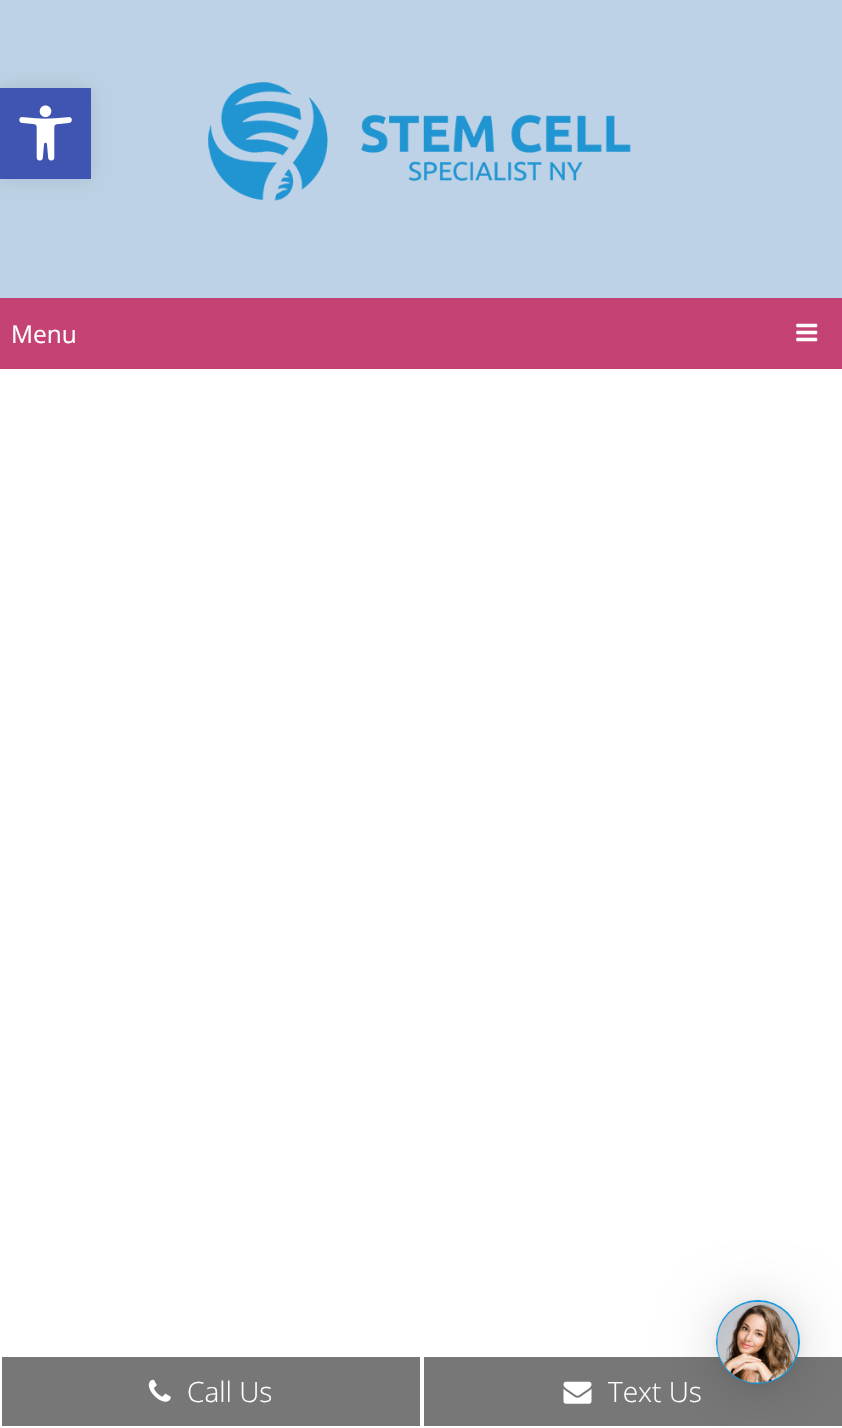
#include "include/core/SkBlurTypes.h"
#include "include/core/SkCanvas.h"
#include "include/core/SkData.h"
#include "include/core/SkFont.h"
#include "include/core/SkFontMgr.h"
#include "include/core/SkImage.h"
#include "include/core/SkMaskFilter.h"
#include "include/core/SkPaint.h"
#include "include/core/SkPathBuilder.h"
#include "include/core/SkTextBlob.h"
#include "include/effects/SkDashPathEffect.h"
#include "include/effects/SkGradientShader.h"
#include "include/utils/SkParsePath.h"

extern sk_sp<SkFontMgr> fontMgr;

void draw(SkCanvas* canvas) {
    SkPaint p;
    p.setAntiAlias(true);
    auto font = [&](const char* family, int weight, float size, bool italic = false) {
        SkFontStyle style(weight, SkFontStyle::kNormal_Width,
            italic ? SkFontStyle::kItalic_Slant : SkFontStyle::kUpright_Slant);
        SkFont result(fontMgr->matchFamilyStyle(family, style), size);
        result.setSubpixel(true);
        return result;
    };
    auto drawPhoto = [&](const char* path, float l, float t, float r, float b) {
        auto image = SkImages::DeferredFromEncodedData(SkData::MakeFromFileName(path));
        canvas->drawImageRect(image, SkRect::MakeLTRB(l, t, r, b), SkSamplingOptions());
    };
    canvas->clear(0xFFFFFFFF);
    p.setColor(0xFFBDD2E6);
    canvas->drawRect(SkRect::MakeLTRB(0, 0, 842, 298), p);
    p.setColor(0x1A000000);
    p.setMaskFilter(SkMaskFilter::MakeBlur(kNormal_SkBlurStyle, 9));
    canvas->drawRect(SkRect::MakeLTRB(0, 88, 91, 179), p);
    p.setMaskFilter(nullptr);
    p.setColor(0xFF4054B2);
    canvas->drawRect(SkRect::MakeLTRB(0, 88, 91, 179), p);
    drawPhoto("media/1.png", 19, 105, 72, 161);
    drawPhoto("media/2.png", 208, 82, 631, 201);
    p.setColor(0xFFC44374);
    canvas->drawRect(SkRect::MakeLTRB(0, 298, 842, 369), p);
    auto font1 = font("Open Sans", 400, 24.5f);
    p.setColor(0xFFFFFFFF);
    canvas->drawString("Menu", 11, 343, font1, p);
    drawPhoto("media/3.png", 796, 323, 818, 342);
    p.setColor(0xFF777777);
    canvas->drawRect(SkRect::MakeLTRB(2, 1357, 420, 1426), p);
    drawPhoto("media/4.png", 148, 1379, 171, 1402);
    auto font2 = font("Open Sans", 300, 28);
    p.setColor(0xFFFFFFFF);
    canvas->drawString("Call Us", 187, 1402, font2, p);
    p.setColor(0xFF777777);
    canvas->drawRect(SkRect::MakeLTRB(424, 1357, 842, 1426), p);
    drawPhoto("media/5.png", 563, 1381, 592, 1404);
    p.setColor(0xFFFFFFFF);
    canvas->drawString("Text Us", 608, 1402, font2, p);
    p.setColor(0x29000000);
    p.setMaskFilter(SkMaskFilter::MakeBlur(kNormal_SkBlurStyle, 28));
    canvas->drawRoundRect(SkRect::MakeLTRB(716, 1304, 800, 1388), 42, 42, p);
    p.setMaskFilter(nullptr);
    p.setColor(0x0F000000);
    p.setMaskFilter(SkMaskFilter::MakeBlur(kNormal_SkBlurStyle, 5));
    canvas->drawRoundRect(SkRect::MakeLTRB(716, 1302, 800, 1386), 42, 42, p);
    p.setMaskFilter(nullptr);
    p.setColor(0xFF0F98DF);
    canvas->drawCircle(758, 1342, 42, p);
    drawPhoto("media/6.png", 717, 1302, 798, 1383);
}
